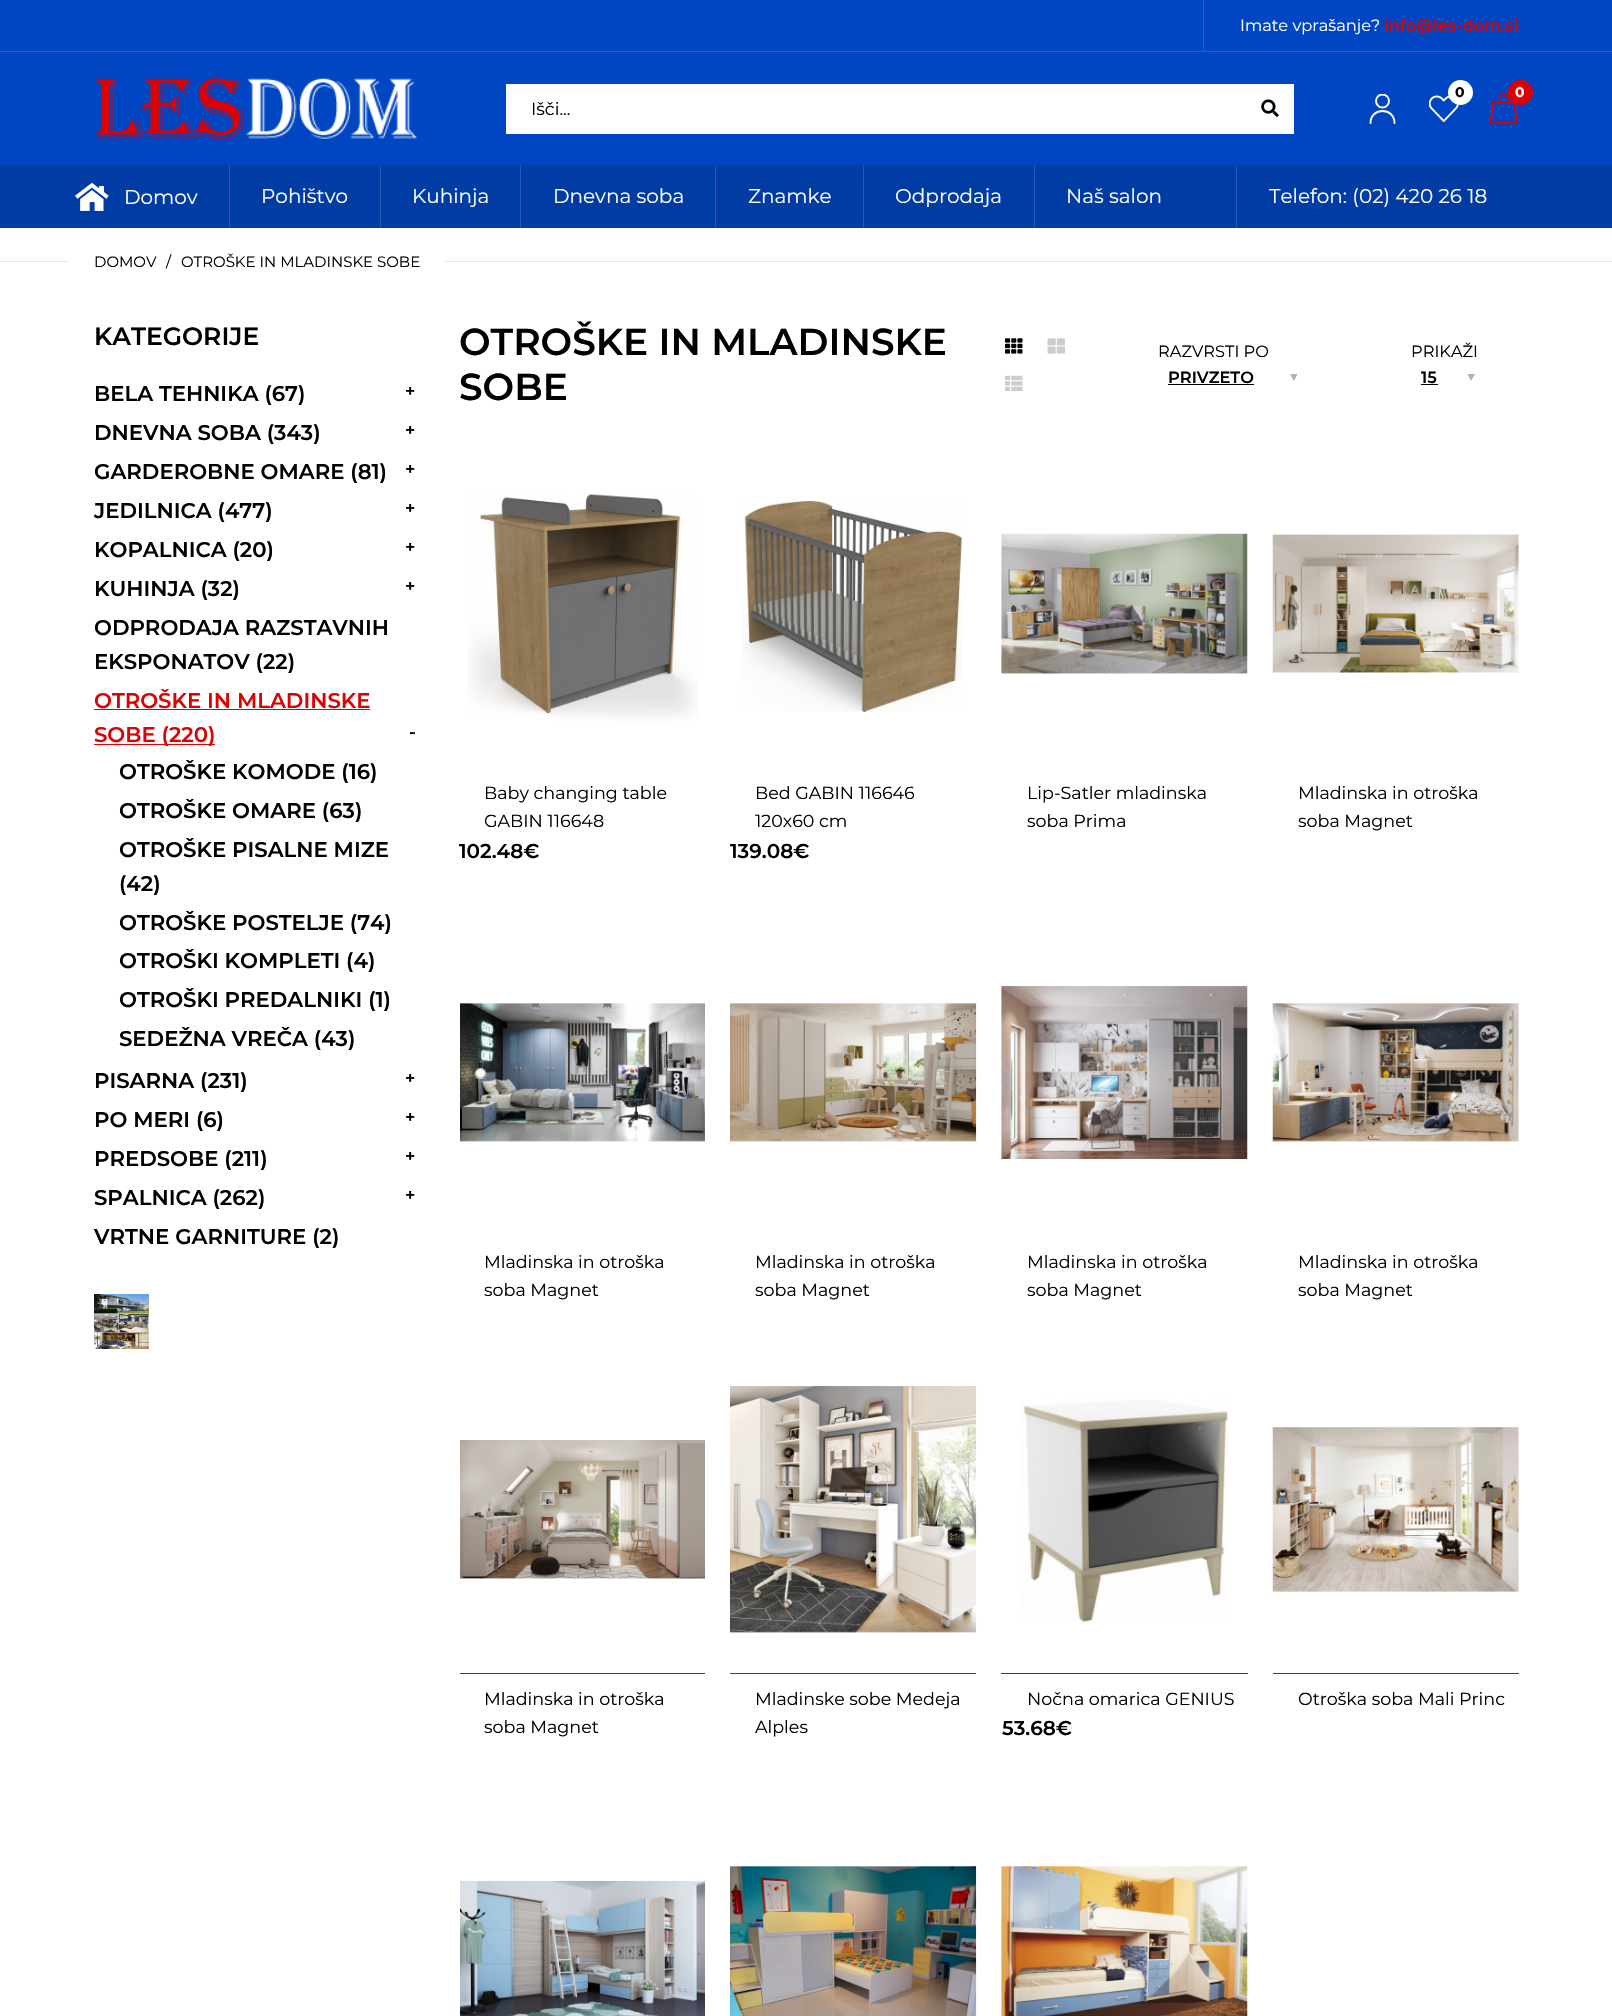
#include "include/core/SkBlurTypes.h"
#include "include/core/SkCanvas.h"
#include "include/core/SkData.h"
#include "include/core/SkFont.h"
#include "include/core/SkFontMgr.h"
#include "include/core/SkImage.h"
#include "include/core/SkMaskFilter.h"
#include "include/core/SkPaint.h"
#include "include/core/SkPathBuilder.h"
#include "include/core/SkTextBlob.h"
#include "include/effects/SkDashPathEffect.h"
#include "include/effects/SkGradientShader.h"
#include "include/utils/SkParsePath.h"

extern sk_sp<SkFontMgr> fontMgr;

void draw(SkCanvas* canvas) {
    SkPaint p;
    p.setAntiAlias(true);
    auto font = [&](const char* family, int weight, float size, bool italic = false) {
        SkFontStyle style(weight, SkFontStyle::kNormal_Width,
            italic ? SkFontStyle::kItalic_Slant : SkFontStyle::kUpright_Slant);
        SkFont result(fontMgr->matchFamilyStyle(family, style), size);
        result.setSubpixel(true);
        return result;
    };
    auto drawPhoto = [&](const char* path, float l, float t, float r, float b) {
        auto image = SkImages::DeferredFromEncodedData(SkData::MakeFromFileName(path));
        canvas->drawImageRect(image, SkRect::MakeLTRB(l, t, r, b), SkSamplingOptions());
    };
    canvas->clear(0xFFFFFFFF);
    {
        const struct { float l, t, r, b; SkColor color; } items[] = {
            {0, 0, 1612, 165, 0xFF0046C3},
            {0, 51, 1612, 52, 0xFF2662CC},
            {1203, 0, 1204, 51, 0xFF2662CC},
        };
        for (auto [l, t, r, b, color] : items) {
            p.setColor(color);
            canvas->drawRect(SkRect::MakeLTRB(l, t, r, b), p);
        }
    }
    auto font1 = font("Montserrat", 400, 16.25f);
    p.setColor(0xFFFFFFFF);
    canvas->drawString("Imate vprašanje?", 1240, 31, font1, p);
    p.setColor(0xFFDF0101);
    canvas->drawRect(SkRect::MakeLTRB(1385, 33, 1519, 34), p);
    auto font2 = font("Montserrat", 600, 16.25f);
    canvas->drawString("info@les-dom.si", 1384, 31, font2, p);
    drawPhoto("media/1.png", 95, 77, 418, 139);
    drawPhoto("media/2.png", 1429, 95, 1459, 122);
    p.setColor(0xFFFFFFFF);
    canvas->drawCircle(1460.5f, 92.5f, 12.5f, p);
    auto font3 = font("Montserrat", 700, 14);
    p.setColor(0xFF000000);
    canvas->drawString("0", 1455, 97, font3, p);
    drawPhoto("media/3.png", 1489, 94, 1518, 124);
    p.setColor(0xFFDF0101);
    canvas->drawCircle(1520.5f, 92.5f, 12.5f, p);
    p.setColor(0xFFFFFFFF);
    canvas->drawString("0", 1515, 97, font3, p);
    canvas->save();
    canvas->clipRect(SkRect::MakeLTRB(1368, 94, 1398, 124));
    p.setStyle(SkPaint::kStroke_Style);
    p.setStrokeWidth(1.9f);
    canvas->drawCircle(1382.5f, 101, 6.5f, p);
    canvas->restore();
    p.setStrokeCap(SkPaint::kRound_Cap);
    p.setStrokeJoin(SkPaint::kRound_Join);
    canvas->drawPath(SkPathBuilder().moveTo(1370.5f, 123).cubicTo(1370.5f, 107, 1394.5f, 107, 1394.5f, 123).detach(), p);
    p.setStyle(SkPaint::kFill_Style);
    canvas->drawRect(SkRect::MakeLTRB(506, 84, 1294, 134), p);
    auto font4 = font("Montserrat", 400, 17.5f);
    p.setColor(0xFF000000);
    canvas->drawString("Išči...", 531, 115, font4, p);
    drawPhoto("media/4.png", 1261, 99, 1279, 117);
    p.setColor(0xFF003CA3);
    canvas->drawRect(SkRect::MakeLTRB(0, 165, 1612, 228), p);
    drawPhoto("media/5.png", 75, 182, 109, 211);
    auto font5 = font("Montserrat", 400, 20);
    p.setColor(0xFFFFFFFF);
    canvas->drawString("Domov", 124, 204, font5, p);
    p.setColor(0xFF2659B1);
    canvas->drawRect(SkRect::MakeLTRB(229, 165, 230, 228), p);
    p.setColor(0xFFFFFFFF);
    canvas->drawString("Pohištvo", 261, 203, font5, p);
    p.setColor(0xFF2659B1);
    canvas->drawRect(SkRect::MakeLTRB(380, 165, 381, 228), p);
    p.setColor(0xFFFFFFFF);
    canvas->drawString("Kuhinja", 412, 203, font5, p);
    p.setColor(0xFF2659B1);
    canvas->drawRect(SkRect::MakeLTRB(520, 165, 521, 228), p);
    p.setColor(0xFFFFFFFF);
    canvas->drawString("Dnevna soba", 553, 203, font5, p);
    p.setColor(0xFF2659B1);
    canvas->drawRect(SkRect::MakeLTRB(715, 165, 716, 228), p);
    p.setColor(0xFFFFFFFF);
    canvas->drawString("Znamke", 748, 203, font5, p);
    p.setColor(0xFF2659B1);
    canvas->drawRect(SkRect::MakeLTRB(863, 165, 864, 228), p);
    p.setColor(0xFFFFFFFF);
    canvas->drawString("Odprodaja", 895, 203, font5, p);
    p.setColor(0xFF2659B1);
    canvas->drawRect(SkRect::MakeLTRB(1034, 165, 1035, 228), p);
    p.setColor(0xFFFFFFFF);
    canvas->drawString("Naš salon", 1066, 203, font5, p);
    p.setColor(0xFF2659B1);
    canvas->drawRect(SkRect::MakeLTRB(1236, 165, 1237, 228), p);
    p.setColor(0xFFFFFFFF);
    canvas->drawString("Telefon: (02) 420 26 18", 1269, 203, font5, p);
    p.setColor(0xFFE6E6E6);
    canvas->drawRect(SkRect::MakeLTRB(0, 261, 1612, 262), p);
    p.setColor(0xFFFFFFFF);
    canvas->drawRect(SkRect::MakeLTRB(69, 261, 445, 262), p);
    auto font6 = font("Montserrat", 400, 15);
    p.setColor(0xFF000000);
    {
        const struct { const char* s; float x, y; } items[] = {
            {"DOMOV", 94, 267},
            {"/", 166, 267},
            {"OTROŠKE IN MLADINSKE SOBE", 181, 267},
        };
        for (auto [s, x, y] : items) {
            canvas->drawString(s, x, y, font6, p);
        }
    }
    auto font7 = font("Montserrat", 600, 25);
    canvas->drawString("KATEGORIJE", 94, 345, font7, p);
    auto font8 = font("Montserrat", 600, 21.25f);
    canvas->drawString("BELA TEHNIKA (67)", 94, 401, font8, p);
    auto font9 = font("Montserrat", 600, 17.5f);
    canvas->drawString("+", 405, 397, font9, p);
    canvas->drawString("DNEVNA SOBA (343)", 94, 440, font8, p);
    canvas->drawString("+", 405, 436, font9, p);
    canvas->drawString("GARDEROBNE OMARE (81)", 94, 479, font8, p);
    canvas->drawString("+", 405, 475, font9, p);
    canvas->drawString("JEDILNICA (477)", 94, 518, font8, p);
    canvas->drawString("+", 405, 514, font9, p);
    canvas->drawString("KOPALNICA (20)", 94, 557, font8, p);
    canvas->drawString("+", 405, 553, font9, p);
    canvas->drawString("KUHINJA (32)", 94, 596, font8, p);
    canvas->drawString("+", 405, 592, font9, p);
    canvas->drawString("ODPRODAJA RAZSTAVNIH", 94, 635, font8, p);
    canvas->drawString("EKSPONATOV (22)", 94, 669, font8, p);
    p.setColor(0xFFDF0101);
    canvas->drawString("OTROŠKE IN MLADINSKE", 94, 708, font8, p);
    canvas->drawRect(SkRect::MakeLTRB(94, 709, 370, 710), p);
    canvas->drawRect(SkRect::MakeLTRB(94, 744, 215, 745), p);
    canvas->drawString("SOBE (220)", 94, 742, font8, p);
    p.setColor(0xFF000000);
    canvas->drawString("-", 409, 738, font9, p);
    {
        const struct { const char* s; float x, y; } items[] = {
            {"OTROŠKE KOMODE (16)", 119, 779},
            {"OTROŠKE OMARE (63)", 119, 818},
            {"OTROŠKE PISALNE MIZE", 119, 857},
            {"(42)", 119, 891},
            {"OTROŠKE POSTELJE (74)", 119, 930},
            {"OTROŠKI KOMPLETI (4)", 119, 968},
            {"OTROŠKI PREDALNIKI (1)", 119, 1007},
            {"SEDEŽNA VREČA (43)", 119, 1046},
            {"PISARNA (231)", 94, 1088},
        };
        for (auto [s, x, y] : items) {
            canvas->drawString(s, x, y, font8, p);
        }
    }
    canvas->drawString("+", 405, 1084, font9, p);
    canvas->drawString("PO MERI (6)", 94, 1127, font8, p);
    canvas->drawString("+", 405, 1123, font9, p);
    canvas->drawString("PREDSOBE (211)", 94, 1166, font8, p);
    canvas->drawString("+", 405, 1162, font9, p);
    canvas->drawString("SPALNICA (262)", 94, 1205, font8, p);
    canvas->drawString("+", 405, 1201, font9, p);
    canvas->drawString("VRTNE GARNITURE (2)", 94, 1244, font8, p);
    drawPhoto("media/6.png", 94, 1294, 149, 1349);
    auto font10 = font("Montserrat", 600, 37.5f);
    canvas->drawString("OTROŠKE IN MLADINSKE", 459, 355, font10, p);
    canvas->drawString("SOBE", 459, 400, font10, p);
    drawPhoto("media/7.png", 1005, 338, 1023, 354);
    drawPhoto("media/8.png", 1047, 338, 1065, 354);
    drawPhoto("media/9.png", 1005, 375, 1023, 391);
    canvas->drawString("RAZVRSTI PO", 1158, 357, font1, p);
    canvas->drawString("PRIVZETO", 1168, 383, font2, p);
    canvas->drawRect(SkRect::MakeLTRB(1168, 384, 1254, 385), p);
    p.setColor(0xFFB2B2B2);
    canvas->drawPath(SkPathBuilder().moveTo(1290, 374).lineTo(1297.5f, 374).lineTo(1294, 381).close().detach(), p);
    p.setColor(0xFF000000);
    canvas->drawString("PRIKAŽI", 1411, 357, font1, p);
    canvas->drawString("15", 1421, 383, font2, p);
    canvas->drawRect(SkRect::MakeLTRB(1421, 384, 1438, 385), p);
    p.setColor(0xFFB2B2B2);
    canvas->drawPath(SkPathBuilder().moveTo(1467.5f, 374).lineTo(1475, 374).lineTo(1471, 381).close().detach(), p);
    drawPhoto("media/10.png", 467, 494, 698, 721);
    p.setColor(0xFF000000);
    canvas->drawString("Baby changing table", 484, 799, font4, p);
    canvas->drawString("GABIN 116648", 484, 827, font4, p);
    auto font11 = font("Montserrat", 600, 20);
    canvas->drawString("102.48€", 459, 858, font11, p);
    drawPhoto("media/11.png", 741, 500, 963, 712);
    canvas->drawString("Bed GABIN 116646", 755, 799, font4, p);
    canvas->drawString("120x60 cm", 755, 827, font4, p);
    canvas->drawString("139.08€", 730, 858, font11, p);
    drawPhoto("media/12.png", 1001, 533, 1248, 674);
    canvas->drawString("Lip-Satler mladinska", 1027, 799, font4, p);
    canvas->drawString("soba Prima", 1027, 827, font4, p);
    drawPhoto("media/13.png", 1272, 534, 1519, 673);
    canvas->drawString("Mladinska in otroška", 1298, 799, font4, p);
    canvas->drawString("soba Magnet", 1298, 827, font4, p);
    drawPhoto("media/14.png", 460, 1003, 705, 1142);
    canvas->drawString("Mladinska in otroška", 484, 1268, font4, p);
    canvas->drawString("soba Magnet", 484, 1296, font4, p);
    drawPhoto("media/15.png", 730, 1003, 977, 1142);
    canvas->drawString("Mladinska in otroška", 755, 1268, font4, p);
    canvas->drawString("soba Magnet", 755, 1296, font4, p);
    drawPhoto("media/16.png", 1001, 986, 1248, 1160);
    canvas->drawString("Mladinska in otroška", 1027, 1268, font4, p);
    canvas->drawString("soba Magnet", 1027, 1296, font4, p);
    drawPhoto("media/17.png", 1272, 1003, 1519, 1142);
    canvas->drawString("Mladinska in otroška", 1298, 1268, font4, p);
    canvas->drawString("soba Magnet", 1298, 1296, font4, p);
    drawPhoto("media/18.png", 460, 1440, 705, 1579);
    p.setColor(0xFFDF0101);
    canvas->drawRect(SkRect::MakeLTRB(460, 1673, 705, 1674), p);
    p.setColor(0xFF000000);
    canvas->drawString("Mladinska in otroška", 484, 1705, font4, p);
    canvas->drawString("soba Magnet", 484, 1733, font4, p);
    drawPhoto("media/19.png", 730, 1386, 977, 1633);
    p.setColor(0xFFDF0101);
    canvas->drawRect(SkRect::MakeLTRB(730, 1673, 976, 1674), p);
    p.setColor(0xFF000000);
    canvas->drawString("Mladinske sobe Medeja", 755, 1705, font4, p);
    canvas->drawString("Alples", 755, 1733, font4, p);
    drawPhoto("media/20.png", 1020, 1399, 1230, 1623);
    p.setColor(0xFF0046C3);
    canvas->drawRect(SkRect::MakeLTRB(1001, 1673, 1248, 1674), p);
    p.setColor(0xFF000000);
    canvas->drawString("Nočna omarica GENIUS", 1027, 1705, font4, p);
    canvas->drawString("53.68€", 1002, 1735, font11, p);
    drawPhoto("media/21.png", 1272, 1427, 1519, 1592);
    p.setColor(0xFFDF0101);
    canvas->drawRect(SkRect::MakeLTRB(1273, 1673, 1519, 1674), p);
    p.setColor(0xFF000000);
    canvas->drawString("Otroška soba Mali Princ", 1298, 1705, font4, p);
    drawPhoto("media/22.png", 460, 1880, 705, 2016);
    drawPhoto("media/23.png", 730, 1865, 977, 2016);
    drawPhoto("media/24.png", 1001, 1866, 1248, 2016);
}
